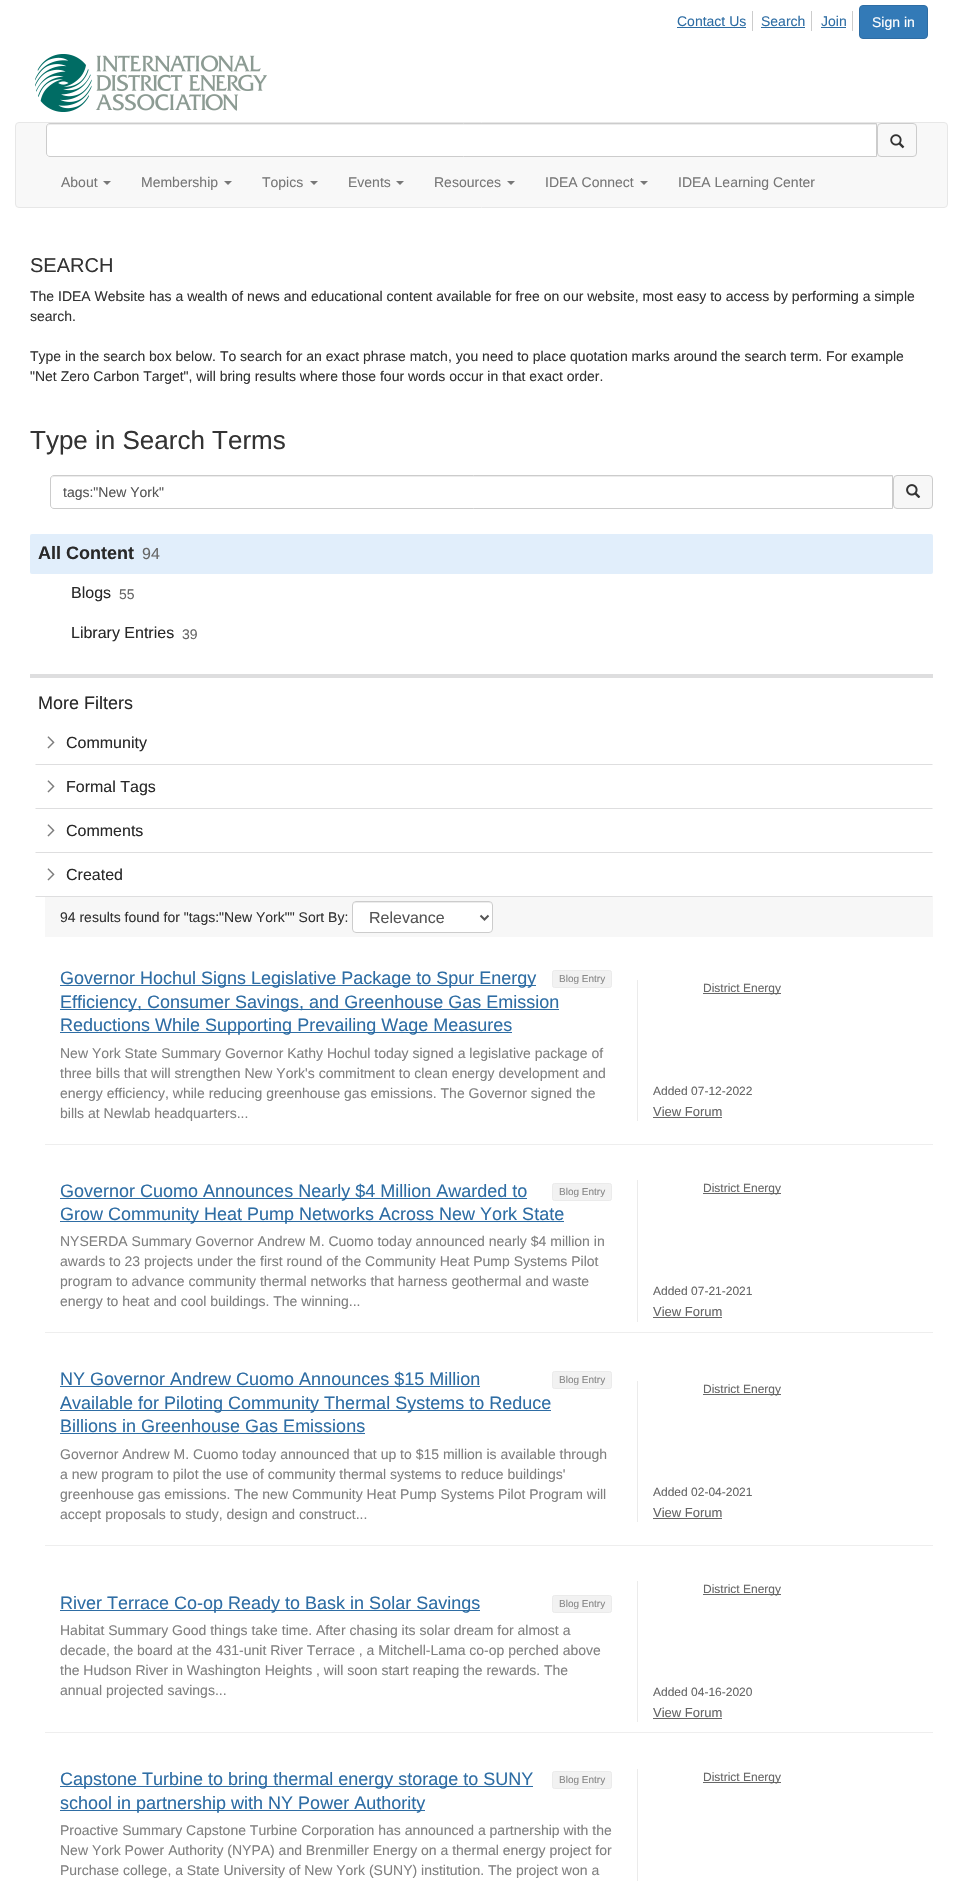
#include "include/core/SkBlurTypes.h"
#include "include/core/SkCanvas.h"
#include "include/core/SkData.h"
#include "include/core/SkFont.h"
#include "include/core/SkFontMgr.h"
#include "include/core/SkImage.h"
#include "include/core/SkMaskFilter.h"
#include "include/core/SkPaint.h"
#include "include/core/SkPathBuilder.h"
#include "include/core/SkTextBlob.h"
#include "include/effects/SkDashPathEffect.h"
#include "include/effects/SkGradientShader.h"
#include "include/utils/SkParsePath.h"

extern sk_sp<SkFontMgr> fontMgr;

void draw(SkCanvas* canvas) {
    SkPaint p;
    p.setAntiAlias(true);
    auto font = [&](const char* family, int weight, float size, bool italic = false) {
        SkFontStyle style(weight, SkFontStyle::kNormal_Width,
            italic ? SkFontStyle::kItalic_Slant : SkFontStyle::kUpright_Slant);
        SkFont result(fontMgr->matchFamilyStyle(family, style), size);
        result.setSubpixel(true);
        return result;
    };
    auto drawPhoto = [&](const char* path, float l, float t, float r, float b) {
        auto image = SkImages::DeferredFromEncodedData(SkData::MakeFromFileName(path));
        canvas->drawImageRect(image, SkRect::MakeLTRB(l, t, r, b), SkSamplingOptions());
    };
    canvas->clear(0xFFFFFFFF);
    p.setColor(0xFFCCCCCC);
    canvas->drawRect(SkRect::MakeLTRB(752, 11, 753, 31), p);
    auto font1 = font("Liberation Sans", 400, 14);
    p.setColor(0xFF2E6DA4);
    canvas->drawString("Contact Us", 677, 26, font1, p);
    canvas->drawRect(SkRect::MakeLTRB(677, 27, 746, 28), p);
    p.setColor(0xFFCCCCCC);
    canvas->drawRect(SkRect::MakeLTRB(811, 11, 812, 31), p);
    p.setColor(0xFF2E6DA4);
    canvas->drawString("Search", 761, 26, font1, p);
    canvas->drawRect(SkRect::MakeLTRB(761, 27, 805, 28), p);
    p.setColor(0xFFCCCCCC);
    canvas->drawRect(SkRect::MakeLTRB(852, 11, 853, 31), p);
    p.setColor(0xFF2E6DA4);
    canvas->drawString("Join", 821, 26, font1, p);
    canvas->drawRect(SkRect::MakeLTRB(821, 27, 846, 28), p);
    p.setColor(0xFF337AB7);
    canvas->drawRoundRect(SkRect::MakeLTRB(859.5f, 5.5f, 927.5f, 38.5f), 3.5f, 3.5f, p);
    p.setStyle(SkPaint::kStroke_Style);
    p.setStrokeWidth(1);
    p.setColor(0xFF2E6DA4);
    canvas->drawRoundRect(SkRect::MakeLTRB(859.5f, 5.5f, 927.5f, 38.5f), 3.5f, 3.5f, p);
    p.setStyle(SkPaint::kFill_Style);
    p.setColor(0xFFFFFFFF);
    canvas->drawString("Sign in", 872, 27, font1, p);
    drawPhoto("media/1.png", 35, 54, 267, 112);
    p.setColor(0xFFF8F8F8);
    canvas->drawRoundRect(SkRect::MakeLTRB(15.5f, 122.5f, 947.5f, 207.5f), 3.5f, 3.5f, p);
    p.setStyle(SkPaint::kStroke_Style);
    p.setColor(0xFFE7E7E7);
    canvas->drawRoundRect(SkRect::MakeLTRB(15.5f, 122.5f, 947.5f, 207.5f), 3.5f, 3.5f, p);
    p.setStyle(SkPaint::kFill_Style);
    p.setColor(0xFFFFFFFF);
    canvas->drawPath(SkPathBuilder().moveTo(50, 123).lineTo(877, 123).lineTo(877, 157).lineTo(50, 157).cubicTo(48, 157, 46, 155, 46, 153).lineTo(46, 127).cubicTo(46, 125, 48, 123, 50, 123).close().detach(), p);
    p.setColor(0xFFECECEC);
    canvas->drawPath(SkPathBuilder().moveTo(50, 125).lineTo(876, 125).lineTo(876, 124).lineTo(50, 124).cubicTo(48, 124, 47, 126, 47, 128).cubicTo(47, 126, 48, 125, 50, 125).close().detach(), p);
    p.setStyle(SkPaint::kStroke_Style);
    p.setColor(0xFFCCCCCC);
    canvas->drawPath(SkPathBuilder().moveTo(50, 123.5f).lineTo(876.5f, 123.5f).lineTo(876.5f, 156.5f).lineTo(50, 156.5f).cubicTo(48, 156.5f, 46.5f, 155, 46.5f, 153).lineTo(46.5f, 127).cubicTo(46.5f, 125, 48, 123.5f, 50, 123.5f).close().detach(), p);
    canvas->drawRoundRect(SkRect::MakeLTRB(877.5f, 123.5f, 916.5f, 156.5f), 3.5f, 3.5f, p);
    drawPhoto("media/2.png", 890, 134, 905, 149);
    p.setStyle(SkPaint::kFill_Style);
    p.setColor(0xFF777777);
    canvas->drawString("About", 61, 187, font1, p);
    canvas->drawPath(SkPathBuilder().moveTo(103, 181).lineTo(111, 181).lineTo(107, 185).close().detach(), p);
    canvas->drawString("Membership", 141, 187, font1, p);
    canvas->drawPath(SkPathBuilder().moveTo(224, 181).lineTo(232, 181).lineTo(228, 185).close().detach(), p);
    canvas->drawString("Topics", 262, 187, font1, p);
    canvas->drawPath(SkPathBuilder().moveTo(310, 181).lineTo(318, 181).lineTo(314, 185).close().detach(), p);
    canvas->drawString("Events", 348, 187, font1, p);
    canvas->drawPath(SkPathBuilder().moveTo(396, 181).lineTo(404, 181).lineTo(400, 185).close().detach(), p);
    canvas->drawString("Resources", 434, 187, font1, p);
    canvas->drawPath(SkPathBuilder().moveTo(507, 181).lineTo(515, 181).lineTo(511, 185).close().detach(), p);
    canvas->drawString("IDEA Connect", 545, 187, font1, p);
    canvas->drawPath(SkPathBuilder().moveTo(640, 181).lineTo(648, 181).lineTo(644, 185).close().detach(), p);
    canvas->drawString("IDEA Learning Center", 678, 187, font1, p);
    auto font2 = font("Liberation Sans", 400, 20);
    p.setColor(0xFF333333);
    canvas->drawString("SEARCH", 30, 272, font2, p);
    {
        const struct { const char* s; float x, y; } items[] = {
            {"The IDEA Website has a wealth of news and educational content available for free on our website, most easy to access by performing a simple", 30, 301},
            {"search.", 30, 321},
            {"Type in the search box below. To search for an exact phrase match, you need to place quotation marks around the search term. For example", 30, 361},
            {"\"Net Zero Carbon Target\", will bring results where those four words occur in that exact order.", 30, 381},
        };
        for (auto [s, x, y] : items) {
            canvas->drawString(s, x, y, font1, p);
        }
    }
    auto font3 = font("Liberation Sans", 400, 26);
    canvas->drawString("Type in Search Terms", 30, 449, font3, p);
    p.setColor(0xFFECECEC);
    canvas->drawPath(SkPathBuilder().moveTo(54, 477).lineTo(892, 477).lineTo(892, 476).lineTo(54, 476).cubicTo(52, 476, 51, 478, 51, 480).cubicTo(51, 478, 52, 477, 54, 477).close().detach(), p);
    p.setStyle(SkPaint::kStroke_Style);
    p.setColor(0xFFCCCCCC);
    canvas->drawPath(SkPathBuilder().moveTo(54, 475.5f).lineTo(892.5f, 475.5f).lineTo(892.5f, 508.5f).lineTo(54, 508.5f).cubicTo(52, 508.5f, 50.5f, 507, 50.5f, 505).lineTo(50.5f, 479).cubicTo(50.5f, 477, 52, 475.5f, 54, 475.5f).close().detach(), p);
    p.setStyle(SkPaint::kFill_Style);
    p.setColor(0xFF555555);
    canvas->drawString("tags:\"New York\"", 63, 497, font1, p);
    p.setColor(0xFFF7F7F7);
    canvas->drawRoundRect(SkRect::MakeLTRB(893.5f, 475.5f, 932.5f, 508.5f), 3.5f, 3.5f, p);
    p.setStyle(SkPaint::kStroke_Style);
    p.setColor(0xFFCCCCCC);
    canvas->drawRoundRect(SkRect::MakeLTRB(893.5f, 475.5f, 932.5f, 508.5f), 3.5f, 3.5f, p);
    drawPhoto("media/3.png", 906, 484, 921, 498);
    p.setStyle(SkPaint::kFill_Style);
    p.setColor(0xFFE1EEFB);
    canvas->drawRoundRect(SkRect::MakeLTRB(30, 534, 933, 574), 2, 2, p);
    auto font4 = font("Liberation Sans", 700, 18);
    p.setColor(0xFF292929);
    canvas->drawString("All Content", 38, 559, font4, p);
    auto font5 = font("Liberation Sans", 400, 16);
    p.setColor(0xFF666666);
    canvas->drawString("94", 142, 559, font5, p);
    p.setColor(0xFF292929);
    canvas->drawString("Blogs", 71, 598, font5, p);
    p.setColor(0xFF666666);
    canvas->drawString("55", 119, 599, font1, p);
    p.setColor(0xFF292929);
    canvas->drawString("Library Entries", 71, 638, font5, p);
    p.setColor(0xFF666666);
    canvas->drawString("39", 182, 639, font1, p);
    p.setColor(0xFFDEDEDF);
    canvas->drawRect(SkRect::MakeLTRB(30, 674, 933, 678), p);
    auto font6 = font("Liberation Sans", 400, 18);
    p.setColor(0xFF292929);
    canvas->drawString("More Filters", 38, 709, font6, p);
    p.setColor(0xFFDEDEDF);
    canvas->drawPath(SkPathBuilder().moveTo(933, 765).lineTo(35, 765).lineTo(36, 764).lineTo(932, 764).close().detach(), p);
    drawPhoto("media/4.png", 47, 736, 55, 749);
    p.setColor(0xFF292929);
    canvas->drawString("Community", 66, 748, font5, p);
    p.setColor(0xFFDEDEDF);
    canvas->drawPath(SkPathBuilder().moveTo(933, 809).lineTo(35, 809).lineTo(36, 808).lineTo(932, 808).close().detach(), p);
    drawPhoto("media/4.png", 47, 780, 55, 793);
    p.setColor(0xFF292929);
    canvas->drawString("Formal Tags", 66, 792, font5, p);
    p.setColor(0xFFDEDEDF);
    canvas->drawPath(SkPathBuilder().moveTo(933, 853).lineTo(35, 853).lineTo(36, 852).lineTo(932, 852).close().detach(), p);
    drawPhoto("media/4.png", 47, 824, 55, 837);
    p.setColor(0xFF292929);
    canvas->drawString("Comments", 66, 836, font5, p);
    p.setColor(0xFFDEDEDF);
    canvas->drawPath(SkPathBuilder().moveTo(933, 897).lineTo(35, 897).lineTo(36, 896).lineTo(932, 896).close().detach(), p);
    drawPhoto("media/4.png", 47, 868, 55, 881);
    p.setColor(0xFF292929);
    canvas->drawString("Created", 66, 880, font5, p);
    p.setColor(0xFFF7F7F7);
    canvas->drawRect(SkRect::MakeLTRB(45, 897, 933, 937), p);
    p.setColor(0xFF333333);
    canvas->drawString("94 results found for \"tags:\"New York\"\" Sort By:", 60, 922, font1, p);
    p.setColor(0xFFFFFFFF);
    canvas->drawRoundRect(SkRect::MakeLTRB(352, 901, 493, 933), 4, 4, p);
    p.setColor(0xFFECECEC);
    canvas->drawPath(SkPathBuilder().moveTo(356, 903).lineTo(489, 903).cubicTo(491, 903, 492, 904, 492, 906).cubicTo(492, 904, 491, 902, 489, 902).lineTo(356, 902).cubicTo(354, 902, 353, 904, 353, 906).cubicTo(353, 904, 354, 903, 356, 903).close().detach(), p);
    p.setStyle(SkPaint::kStroke_Style);
    p.setColor(0xFFCCCCCC);
    canvas->drawRoundRect(SkRect::MakeLTRB(352.5f, 901.5f, 492.5f, 932.5f), 3.5f, 3.5f, p);
    p.setStrokeWidth(2);
    p.setColor(0xFF555555);
    canvas->drawPath(SkPathBuilder().moveTo(480.5f, 915.5f).lineTo(484.5f, 919.5f).lineTo(488.5f, 915.5f).detach(), p);
    p.setStyle(SkPaint::kFill_Style);
    canvas->drawString("Relevance", 369, 923, font5, p);
    p.setColor(0xFF2E6DA4);
    canvas->drawRect(SkRect::MakeLTRB(60, 985, 536, 986), p);
    canvas->drawString("Governor Hochul Signs Legislative Package to Spur Energy", 60, 984, font6, p);
    p.setColor(0xFFF2F2F2);
    canvas->drawRoundRect(SkRect::MakeLTRB(552.5f, 970.5f, 611.5f, 987.5f), 2, 2, p);
    p.setStyle(SkPaint::kStroke_Style);
    p.setStrokeWidth(1);
    p.setColor(0xFFEBEBEB);
    canvas->drawRoundRect(SkRect::MakeLTRB(552.5f, 970.5f, 611.5f, 987.5f), 2, 2, p);
    auto font7 = font("Liberation Sans", 400, 10);
    p.setStyle(SkPaint::kFill_Style);
    p.setColor(0xFF888888);
    canvas->drawString("Blog Entry", 559, 982, font7, p);
    p.setColor(0xFF2E6DA4);
    canvas->drawRect(SkRect::MakeLTRB(60, 1009, 559, 1010), p);
    canvas->drawString("Efficiency, Consumer Savings, and Greenhouse Gas Emission", 60, 1008, font6, p);
    canvas->drawRect(SkRect::MakeLTRB(60, 1032, 512, 1033), p);
    canvas->drawString("Reductions While Supporting Prevailing Wage Measures", 60, 1031, font6, p);
    p.setColor(0xFF808080);
    {
        const struct { const char* s; float x, y; } items[] = {
            {"New York State Summary Governor Kathy Hochul today signed a legislative package of", 60, 1058},
            {"three bills that will strengthen New York's commitment to clean energy development and", 60, 1078},
            {"energy efficiency, while reducing greenhouse gas emissions. The Governor signed the", 60, 1098},
            {"bills at Newlab headquarters...", 60, 1118},
        };
        for (auto [s, x, y] : items) {
            canvas->drawString(s, x, y, font1, p);
        }
    }
    p.setColor(0xFFEBEBEB);
    canvas->drawRect(SkRect::MakeLTRB(637, 980, 638, 1121), p);
    p.setColor(0xFF666666);
    canvas->drawRect(SkRect::MakeLTRB(703, 993, 781, 994), p);
    auto font8 = font("Liberation Sans", 400, 12);
    canvas->drawString("District Energy", 703, 992, font8, p);
    canvas->drawString("Added 07-12-2022", 653, 1095, font8, p);
    auto font9 = font("Liberation Sans", 400, 13);
    canvas->drawString("View Forum", 653, 1116, font9, p);
    {
        const struct { float l, t, r, b; SkColor color; } items[] = {
            {653, 1117, 722, 1118, 0xFF666666},
            {45, 1144, 933, 1145, 0xFFEEEEEE},
            {60, 1198, 527, 1199, 0xFF2E6DA4},
        };
        for (auto [l, t, r, b, color] : items) {
            p.setColor(color);
            canvas->drawRect(SkRect::MakeLTRB(l, t, r, b), p);
        }
    }
    canvas->drawString("Governor Cuomo Announces Nearly $4 Million Awarded to", 60, 1197, font6, p);
    p.setColor(0xFFF2F2F2);
    canvas->drawRoundRect(SkRect::MakeLTRB(552.5f, 1183.5f, 611.5f, 1200.5f), 2, 2, p);
    p.setStyle(SkPaint::kStroke_Style);
    p.setColor(0xFFEBEBEB);
    canvas->drawRoundRect(SkRect::MakeLTRB(552.5f, 1183.5f, 611.5f, 1200.5f), 2, 2, p);
    p.setStyle(SkPaint::kFill_Style);
    p.setColor(0xFF888888);
    canvas->drawString("Blog Entry", 559, 1195, font7, p);
    p.setColor(0xFF2E6DA4);
    canvas->drawRect(SkRect::MakeLTRB(60, 1221, 564, 1222), p);
    canvas->drawString("Grow Community Heat Pump Networks Across New York State", 60, 1220, font6, p);
    p.setColor(0xFF808080);
    {
        const struct { const char* s; float x, y; } items[] = {
            {"NYSERDA Summary Governor Andrew M. Cuomo today announced nearly $4 million in", 60, 1246},
            {"awards to 23 projects under the first round of the Community Heat Pump Systems Pilot", 60, 1266},
            {"program to advance community thermal networks that harness geothermal and waste", 60, 1286},
            {"energy to heat and cool buildings. The winning...", 60, 1306},
        };
        for (auto [s, x, y] : items) {
            canvas->drawString(s, x, y, font1, p);
        }
    }
    p.setColor(0xFFEBEBEB);
    canvas->drawRect(SkRect::MakeLTRB(637, 1180, 638, 1322), p);
    p.setColor(0xFF666666);
    canvas->drawRect(SkRect::MakeLTRB(703, 1193, 781, 1194), p);
    canvas->drawString("District Energy", 703, 1192, font8, p);
    canvas->drawString("Added 07-21-2021", 653, 1295, font8, p);
    canvas->drawString("View Forum", 653, 1316, font9, p);
    {
        const struct { float l, t, r, b; SkColor color; } items[] = {
            {653, 1317, 722, 1318, 0xFF666666},
            {45, 1332, 933, 1333, 0xFFEEEEEE},
            {60, 1386, 480, 1387, 0xFF2E6DA4},
        };
        for (auto [l, t, r, b, color] : items) {
            p.setColor(color);
            canvas->drawRect(SkRect::MakeLTRB(l, t, r, b), p);
        }
    }
    canvas->drawString("NY Governor Andrew Cuomo Announces $15 Million", 60, 1385, font6, p);
    p.setColor(0xFFF2F2F2);
    canvas->drawRoundRect(SkRect::MakeLTRB(552.5f, 1371.5f, 611.5f, 1388.5f), 2, 2, p);
    p.setStyle(SkPaint::kStroke_Style);
    p.setColor(0xFFEBEBEB);
    canvas->drawRoundRect(SkRect::MakeLTRB(552.5f, 1371.5f, 611.5f, 1388.5f), 2, 2, p);
    p.setStyle(SkPaint::kFill_Style);
    p.setColor(0xFF888888);
    canvas->drawString("Blog Entry", 559, 1383, font7, p);
    p.setColor(0xFF2E6DA4);
    canvas->drawRect(SkRect::MakeLTRB(60, 1410, 551, 1411), p);
    canvas->drawString("Available for Piloting Community Thermal Systems to Reduce", 60, 1409, font6, p);
    canvas->drawString("Billions in Greenhouse Gas Emissions", 60, 1432, font6, p);
    canvas->drawRect(SkRect::MakeLTRB(60, 1433, 365, 1434), p);
    p.setColor(0xFF808080);
    {
        const struct { const char* s; float x, y; } items[] = {
            {"Governor Andrew M. Cuomo today announced that up to $15 million is available through", 60, 1459},
            {"a new program to pilot the use of community thermal systems to reduce buildings'", 60, 1479},
            {"greenhouse gas emissions. The new Community Heat Pump Systems Pilot Program will", 60, 1499},
            {"accept proposals to study, design and construct...", 60, 1519},
        };
        for (auto [s, x, y] : items) {
            canvas->drawString(s, x, y, font1, p);
        }
    }
    p.setColor(0xFFEBEBEB);
    canvas->drawRect(SkRect::MakeLTRB(637, 1381, 638, 1522), p);
    p.setColor(0xFF666666);
    canvas->drawRect(SkRect::MakeLTRB(703, 1394, 781, 1395), p);
    canvas->drawString("District Energy", 703, 1393, font8, p);
    canvas->drawString("Added 02-04-2021", 653, 1496, font8, p);
    canvas->drawString("View Forum", 653, 1517, font9, p);
    {
        const struct { float l, t, r, b; SkColor color; } items[] = {
            {653, 1518, 722, 1519, 0xFF666666},
            {45, 1545, 933, 1546, 0xFFEEEEEE},
            {60, 1610, 480, 1611, 0xFF2E6DA4},
        };
        for (auto [l, t, r, b, color] : items) {
            p.setColor(color);
            canvas->drawRect(SkRect::MakeLTRB(l, t, r, b), p);
        }
    }
    canvas->drawString("River Terrace Co-op Ready to Bask in Solar Savings", 60, 1609, font6, p);
    p.setColor(0xFFF2F2F2);
    canvas->drawRoundRect(SkRect::MakeLTRB(552.5f, 1595.5f, 611.5f, 1612.5f), 2, 2, p);
    p.setStyle(SkPaint::kStroke_Style);
    p.setColor(0xFFEBEBEB);
    canvas->drawRoundRect(SkRect::MakeLTRB(552.5f, 1595.5f, 611.5f, 1612.5f), 2, 2, p);
    p.setStyle(SkPaint::kFill_Style);
    p.setColor(0xFF888888);
    canvas->drawString("Blog Entry", 559, 1607, font7, p);
    p.setColor(0xFF808080);
    {
        const struct { const char* s; float x, y; } items[] = {
            {"Habitat Summary Good things take time. After chasing its solar dream for almost a", 60, 1635},
            {"decade, the board at the 431-unit River Terrace , a Mitchell-Lama co-op perched above", 60, 1655},
            {"the Hudson River in Washington Heights , will soon start reaping the rewards. The", 60, 1675},
            {"annual projected savings...", 60, 1695},
        };
        for (auto [s, x, y] : items) {
            canvas->drawString(s, x, y, font1, p);
        }
    }
    p.setColor(0xFFEBEBEB);
    canvas->drawRect(SkRect::MakeLTRB(637, 1581, 638, 1722), p);
    p.setColor(0xFF666666);
    canvas->drawRect(SkRect::MakeLTRB(703, 1594, 781, 1595), p);
    canvas->drawString("District Energy", 703, 1593, font8, p);
    canvas->drawString("Added 04-16-2020", 653, 1696, font8, p);
    canvas->drawString("View Forum", 653, 1717, font9, p);
    {
        const struct { float l, t, r, b; SkColor color; } items[] = {
            {653, 1718, 722, 1719, 0xFF666666},
            {45, 1732, 933, 1733, 0xFFEEEEEE},
            {60, 1786, 533, 1787, 0xFF2E6DA4},
        };
        for (auto [l, t, r, b, color] : items) {
            p.setColor(color);
            canvas->drawRect(SkRect::MakeLTRB(l, t, r, b), p);
        }
    }
    canvas->drawString("Capstone Turbine to bring thermal energy storage to SUNY", 60, 1785, font6, p);
    p.setColor(0xFFF2F2F2);
    canvas->drawRoundRect(SkRect::MakeLTRB(552.5f, 1771.5f, 611.5f, 1788.5f), 2, 2, p);
    p.setStyle(SkPaint::kStroke_Style);
    p.setColor(0xFFEBEBEB);
    canvas->drawRoundRect(SkRect::MakeLTRB(552.5f, 1771.5f, 611.5f, 1788.5f), 2, 2, p);
    p.setStyle(SkPaint::kFill_Style);
    p.setColor(0xFF888888);
    canvas->drawString("Blog Entry", 559, 1783, font7, p);
    p.setColor(0xFF2E6DA4);
    canvas->drawRect(SkRect::MakeLTRB(60, 1810, 425, 1811), p);
    canvas->drawString("school in partnership with NY Power Authority", 60, 1809, font6, p);
    p.setColor(0xFF808080);
    {
        const struct { const char* s; float x, y; } items[] = {
            {"Proactive Summary Capstone Turbine Corporation has announced a partnership with the", 60, 1835},
            {"New York Power Authority (NYPA) and Brenmiller Energy on a thermal energy project for", 60, 1855},
            {"Purchase college, a State University of New York (SUNY) institution. The project won a", 60, 1875},
        };
        for (auto [s, x, y] : items) {
            canvas->drawString(s, x, y, font1, p);
        }
    }
    p.setColor(0xFFEBEBEB);
    canvas->drawRect(SkRect::MakeLTRB(637, 1769, 638, 1881), p);
    p.setColor(0xFF666666);
    canvas->drawRect(SkRect::MakeLTRB(703, 1782, 781, 1783), p);
    canvas->drawString("District Energy", 703, 1781, font8, p);
}
